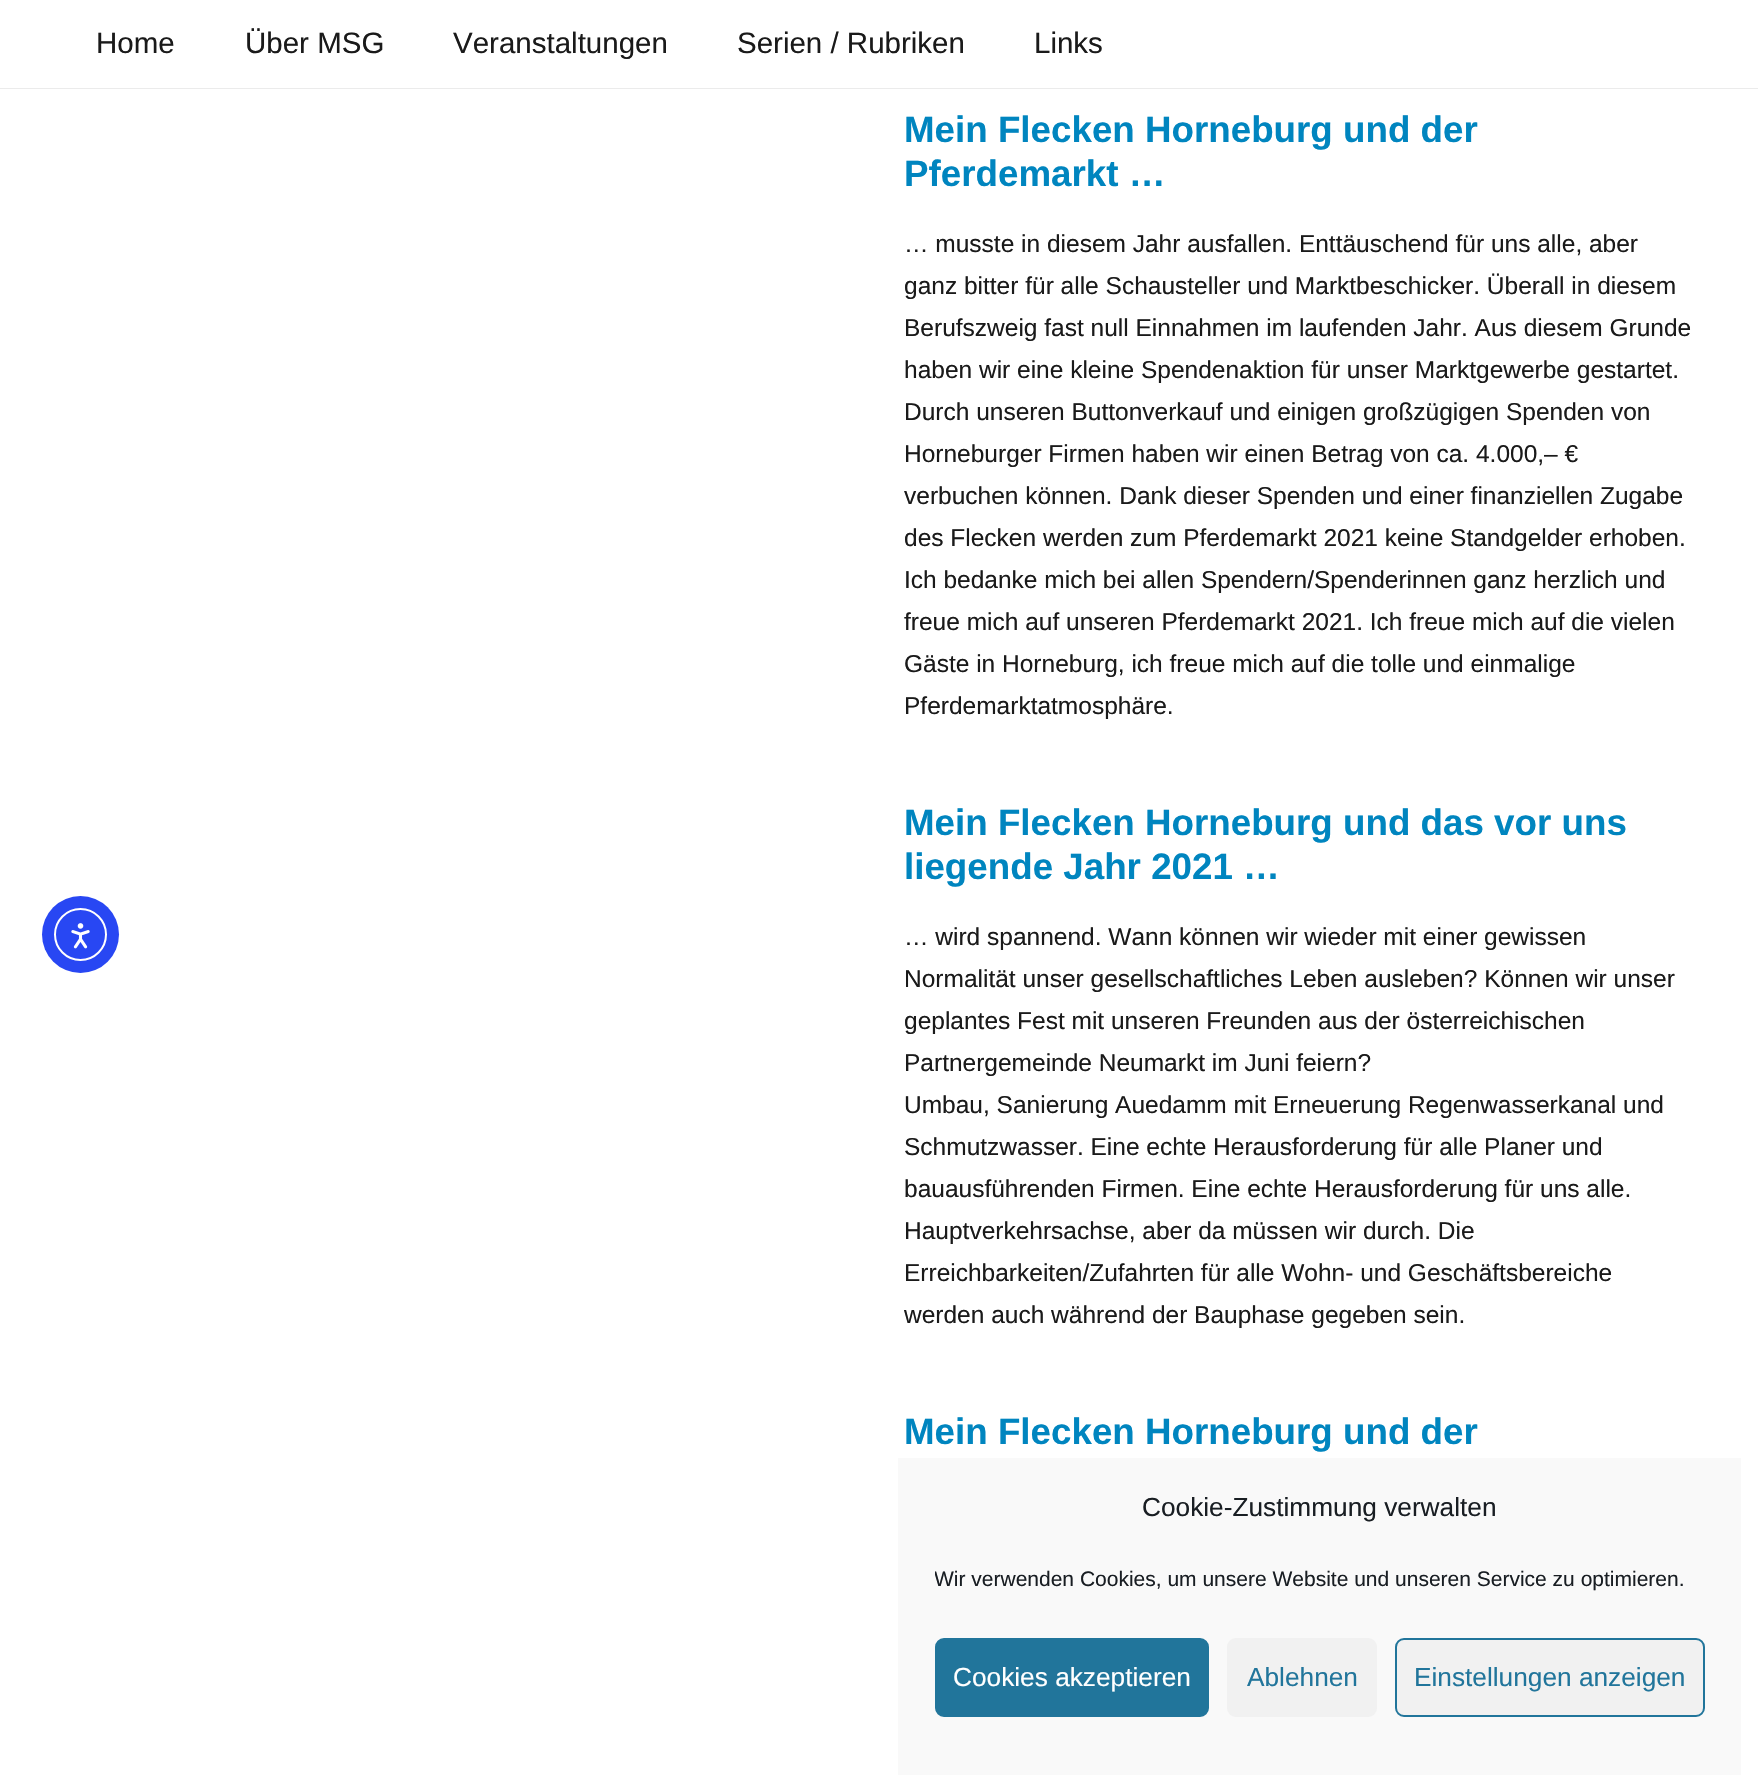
#include "include/core/SkBlurTypes.h"
#include "include/core/SkCanvas.h"
#include "include/core/SkData.h"
#include "include/core/SkFont.h"
#include "include/core/SkFontMgr.h"
#include "include/core/SkImage.h"
#include "include/core/SkMaskFilter.h"
#include "include/core/SkPaint.h"
#include "include/core/SkPathBuilder.h"
#include "include/core/SkTextBlob.h"
#include "include/effects/SkDashPathEffect.h"
#include "include/effects/SkGradientShader.h"
#include "include/utils/SkParsePath.h"

extern sk_sp<SkFontMgr> fontMgr;

void draw(SkCanvas* canvas) {
    SkPaint p;
    p.setAntiAlias(true);
    auto font = [&](const char* family, int weight, float size, bool italic = false) {
        SkFontStyle style(weight, SkFontStyle::kNormal_Width,
            italic ? SkFontStyle::kItalic_Slant : SkFontStyle::kUpright_Slant);
        SkFont result(fontMgr->matchFamilyStyle(family, style), size);
        result.setSubpixel(true);
        return result;
    };
    auto drawPhoto = [&](const char* path, float l, float t, float r, float b) {
        auto image = SkImages::DeferredFromEncodedData(SkData::MakeFromFileName(path));
        canvas->drawImageRect(image, SkRect::MakeLTRB(l, t, r, b), SkSamplingOptions());
    };
    canvas->clear(0xFFFFFFFF);
    p.setColor(0xFF2847F3);
    canvas->drawCircle(80.5f, 934.5f, 38.5f, p);
    p.setStyle(SkPaint::kStroke_Style);
    p.setStrokeWidth(2);
    p.setColor(0xFFFFFFFF);
    canvas->drawCircle(80.5f, 934.5f, 25.5f, p);
    drawPhoto("media/1.png", 71, 923, 90, 949);
    p.setStyle(SkPaint::kFill_Style);
    p.setColor(0xFFEBEBEB);
    canvas->drawPath(SkPathBuilder().moveTo(0, 88).lineTo(0, 89).lineTo(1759, 89).lineTo(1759, 2).lineTo(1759, 88).close().detach(), p);
    auto font1 = font("Liberation Sans", 400, 29.5f);
    p.setColor(0xFF1A1A1A);
    {
        const struct { const char* s; float x, y; } items[] = {
            {"Home", 96, 53},
            {"Über MSG", 245, 53},
            {"Veranstaltungen", 453, 53},
            {"Serien / Rubriken", 737, 53},
            {"Links", 1034, 53},
        };
        for (auto [s, x, y] : items) {
            canvas->drawString(s, x, y, font1, p);
        }
    }
    auto font2 = font("Liberation Sans", 700, 36.75f);
    p.setColor(0xFF0085BF);
    canvas->drawString("Mein Flecken Horneburg und der", 904, 142, font2, p);
    canvas->drawString("Pferdemarkt …", 904, 186, font2, p);
    auto font3 = font("Liberation Sans", 400, 24.5f);
    p.setColor(0xFF1A1A1A);
    {
        const struct { const char* s; float x, y; } items[] = {
            {"… musste in diesem Jahr ausfallen. Enttäuschend für uns alle, aber", 904, 252},
            {"ganz bitter für alle Schausteller und Marktbeschicker. Überall in diesem", 904, 294},
            {"Berufszweig fast null Einnahmen im laufenden Jahr. Aus diesem Grunde", 904, 336},
            {"haben wir eine kleine Spendenaktion für unser Marktgewerbe gestartet.", 904, 378},
            {"Durch unseren Buttonverkauf und einigen großzügigen Spenden von", 904, 420},
            {"Horneburger Firmen haben wir einen Betrag von ca. 4.000,– €", 904, 462},
            {"verbuchen können. Dank dieser Spenden und einer finanziellen Zugabe", 904, 504},
            {"des Flecken werden zum Pferdemarkt 2021 keine Standgelder erhoben.", 904, 546},
            {"Ich bedanke mich bei allen Spendern/Spenderinnen ganz herzlich und", 904, 588},
            {"freue mich auf unseren Pferdemarkt 2021. Ich freue mich auf die vielen", 904, 630},
            {"Gäste in Horneburg, ich freue mich auf die tolle und einmalige", 904, 672},
            {"Pferdemarktatmosphäre.", 904, 714},
        };
        for (auto [s, x, y] : items) {
            canvas->drawString(s, x, y, font3, p);
        }
    }
    p.setColor(0xFF0085BF);
    canvas->drawString("Mein Flecken Horneburg und das vor uns", 904, 835, font2, p);
    canvas->drawString("liegende Jahr 2021 …", 904, 879, font2, p);
    p.setColor(0xFF1A1A1A);
    {
        const struct { const char* s; float x, y; } items[] = {
            {"… wird spannend. Wann können wir wieder mit einer gewissen", 904, 945},
            {"Normalität unser gesellschaftliches Leben ausleben? Können wir unser", 904, 987},
            {"geplantes Fest mit unseren Freunden aus der österreichischen", 904, 1029},
            {"Partnergemeinde Neumarkt im Juni feiern?", 904, 1071},
            {"Umbau, Sanierung Auedamm mit Erneuerung Regenwasserkanal und", 904, 1113},
            {"Schmutzwasser. Eine echte Herausforderung für alle Planer und", 904, 1155},
            {"bauausführenden Firmen. Eine echte Herausforderung für uns alle.", 904, 1197},
            {"Hauptverkehrsachse, aber da müssen wir durch. Die", 904, 1239},
            {"Erreichbarkeiten/Zufahrten für alle Wohn- und Geschäftsbereiche", 904, 1281},
            {"werden auch während der Bauphase gegeben sein.", 904, 1323},
        };
        for (auto [s, x, y] : items) {
            canvas->drawString(s, x, y, font3, p);
        }
    }
    p.setColor(0xFF0085BF);
    canvas->drawString("Mein Flecken Horneburg und der", 904, 1444, font2, p);
    p.setColor(0xFFF9F9F9);
    canvas->drawRect(SkRect::MakeLTRB(898, 1458, 1741, 1775), p);
    auto font4 = font("Liberation Sans", 400, 26.25f);
    p.setColor(0xFF191E23);
    canvas->drawString("Cookie-Zustimmung verwalten", 1142, 1516, font4, p);
    canvas->save();
    canvas->clipRect(SkRect::MakeLTRB(935, 1563, 1705, 1603));
    auto font5 = font("Liberation Sans", 400, 21);
    canvas->drawString("Wir verwenden Cookies, um unsere Website und unseren Service zu optimieren.", 934, 1586, font5, p);
    canvas->restore();
    p.setColor(0xFF21759B);
    canvas->drawRoundRect(SkRect::MakeLTRB(936, 1639, 1208, 1716), 8, 8, p);
    p.setStyle(SkPaint::kStroke_Style);
    canvas->drawRoundRect(SkRect::MakeLTRB(936, 1639, 1208, 1716), 8, 8, p);
    p.setStyle(SkPaint::kFill_Style);
    p.setColor(0xFFFFFFFF);
    canvas->drawString("Cookies akzeptieren", 953, 1686, font4, p);
    p.setColor(0xFFF1F1F1);
    canvas->drawRoundRect(SkRect::MakeLTRB(1227, 1638, 1377, 1717), 9, 9, p);
    p.setColor(0xFF21759B);
    canvas->drawString("Ablehnen", 1247, 1686, font4, p);
    p.setColor(0xFFF1F1F1);
    canvas->drawRoundRect(SkRect::MakeLTRB(1396, 1639, 1704, 1716), 8, 8, p);
    p.setStyle(SkPaint::kStroke_Style);
    p.setColor(0xFF21759B);
    canvas->drawRoundRect(SkRect::MakeLTRB(1396, 1639, 1704, 1716), 8, 8, p);
    p.setStyle(SkPaint::kFill_Style);
    canvas->drawString("Einstellungen anzeigen", 1414, 1686, font4, p);
}
